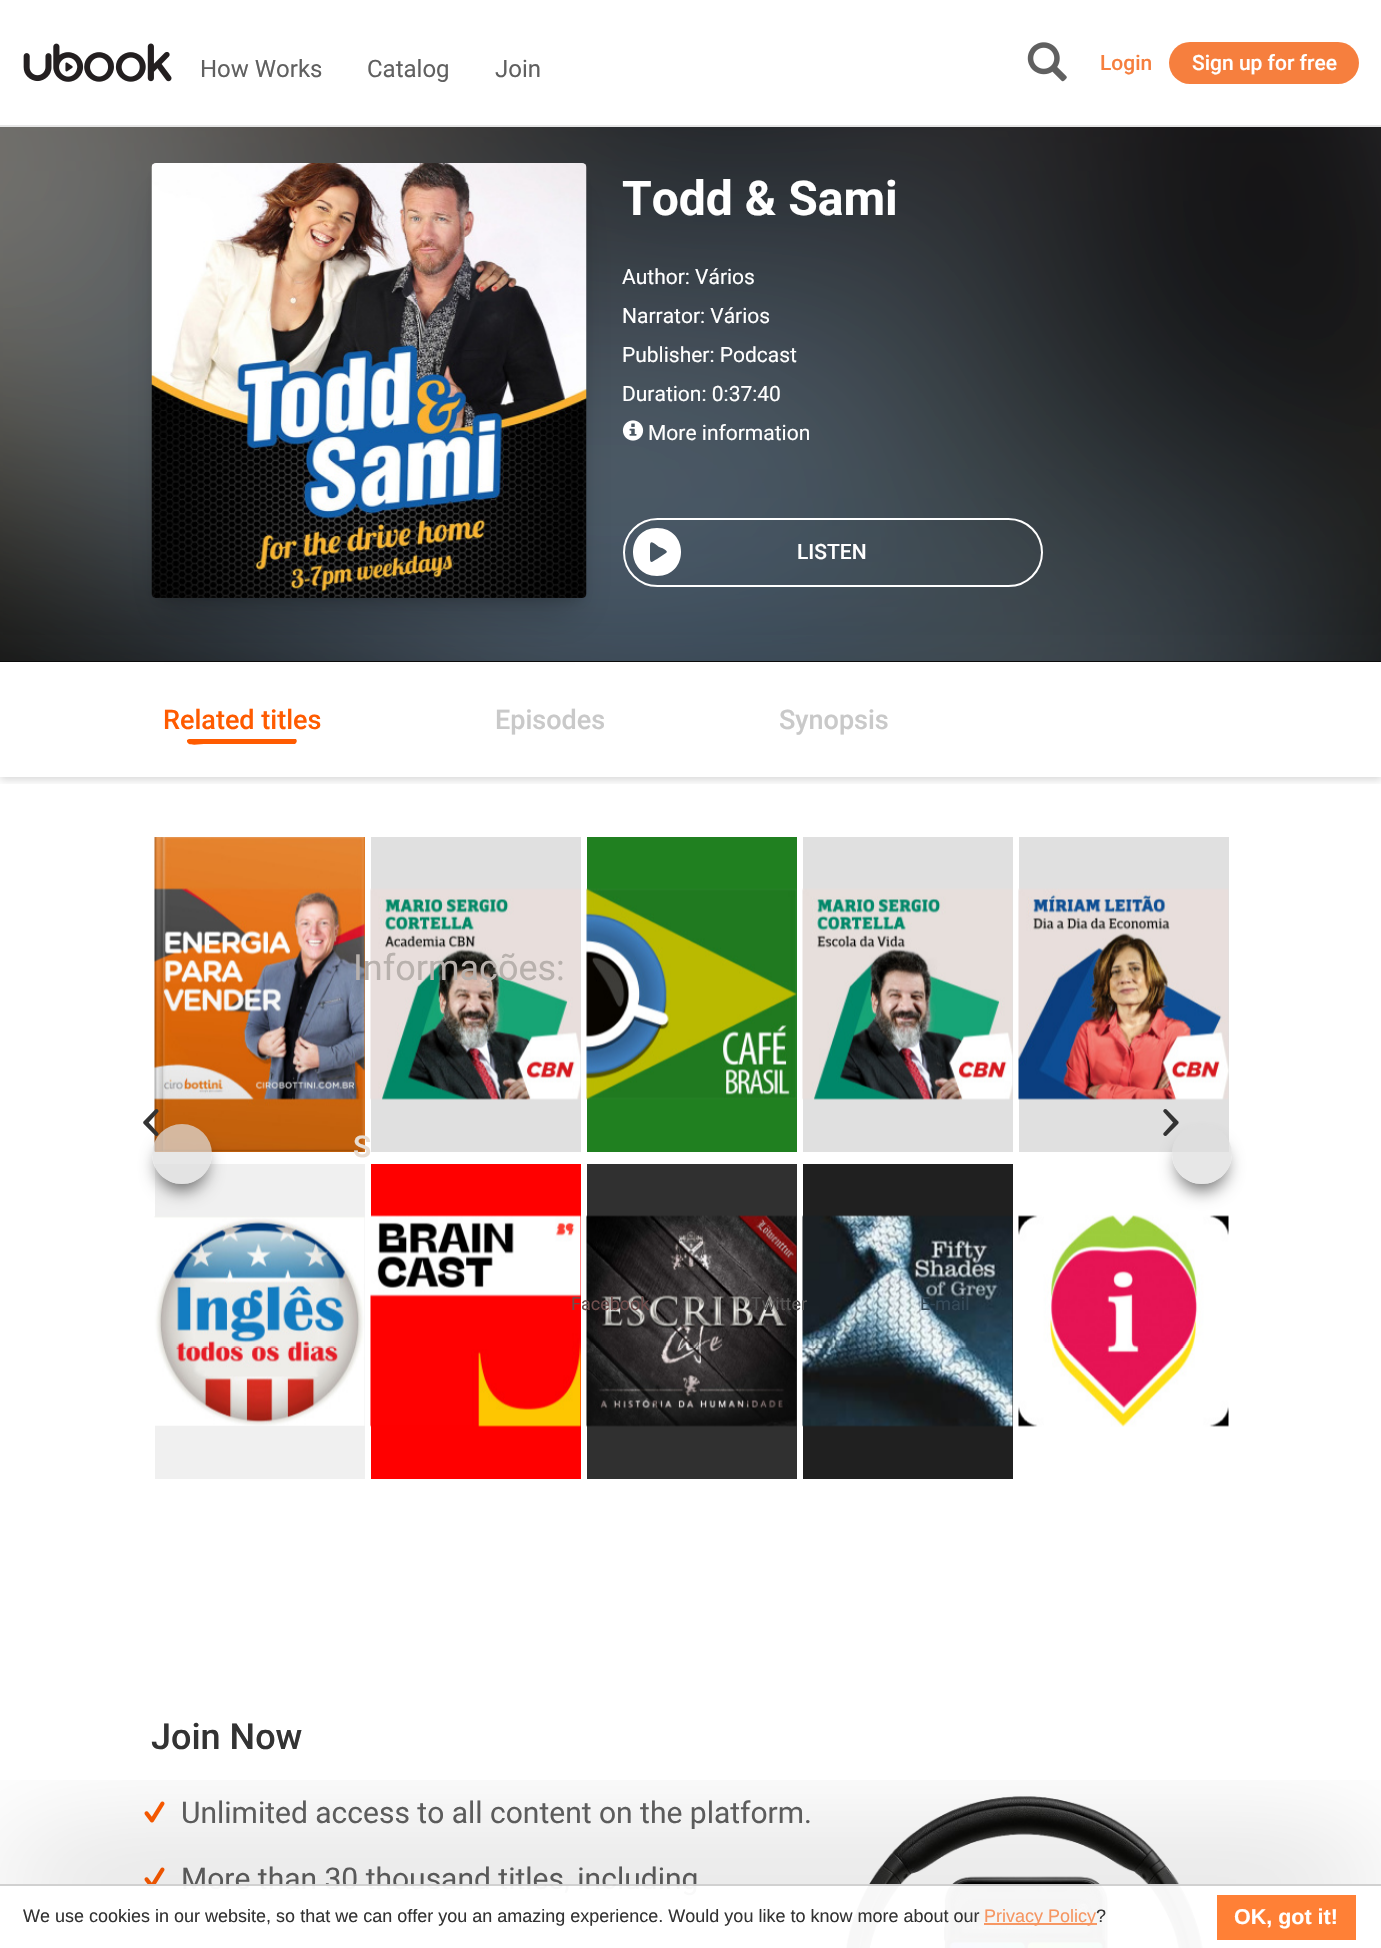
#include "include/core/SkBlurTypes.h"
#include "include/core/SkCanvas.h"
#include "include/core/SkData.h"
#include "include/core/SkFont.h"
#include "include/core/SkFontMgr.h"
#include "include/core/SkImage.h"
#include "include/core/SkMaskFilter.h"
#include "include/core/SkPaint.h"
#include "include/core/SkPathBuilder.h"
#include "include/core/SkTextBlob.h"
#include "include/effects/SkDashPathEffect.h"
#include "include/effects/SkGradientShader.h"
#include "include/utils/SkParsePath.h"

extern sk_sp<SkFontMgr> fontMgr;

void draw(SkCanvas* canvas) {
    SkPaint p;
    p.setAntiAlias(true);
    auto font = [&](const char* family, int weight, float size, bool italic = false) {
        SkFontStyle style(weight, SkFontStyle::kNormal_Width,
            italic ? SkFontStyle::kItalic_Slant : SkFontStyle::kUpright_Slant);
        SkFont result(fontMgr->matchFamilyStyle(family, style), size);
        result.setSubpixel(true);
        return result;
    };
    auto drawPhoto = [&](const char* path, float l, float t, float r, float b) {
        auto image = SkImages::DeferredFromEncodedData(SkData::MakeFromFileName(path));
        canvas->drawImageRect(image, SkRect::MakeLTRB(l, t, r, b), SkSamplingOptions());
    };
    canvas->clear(0xFFFFFFFF);
    p.setColor(0xFFE7E7E7);
    canvas->drawRect(SkRect::MakeLTRB(0, 125, 1381, 127), p);
    drawPhoto("media/1.png", 23, 43, 172, 82);
    auto font1 = font("Roboto", 400, 24);
    p.setColor(0xFF606060);
    {
        const struct { const char* s; float x, y; } items[] = {
            {"How Works", 200, 77},
            {"Catalog", 367, 77},
            {"Join", 495, 77},
        };
        for (auto [s, x, y] : items) {
            canvas->drawString(s, x, y, font1, p);
        }
    }
    drawPhoto("media/2.png", 1027, 42, 1067, 82);
    auto font2 = font("Roboto", 500, 21);
    p.setColor(0xFFF67F3E);
    canvas->drawString("Login", 1100, 70, font2, p);
    canvas->drawRoundRect(SkRect::MakeLTRB(1169, 42, 1359, 84), 21, 21, p);
    p.setColor(0xFFFFFFFF);
    canvas->drawString("Sign up for free", 1192, 70, font2, p);
    p.setColor(0xFF0B0B0B);
    canvas->drawRect(SkRect::MakeLTRB(0, 127, 1381, 662), p);
    drawPhoto("media/3.png", 0, 127, 1381, 661);
    p.setColor(0x33000000);
    p.setMaskFilter(SkMaskFilter::MakeBlur(kNormal_SkBlurStyle, 6));
    canvas->drawRect(SkRect::MakeLTRB(158, 176, 581, 599), p);
    p.setMaskFilter(nullptr);
    p.setStyle(SkPaint::kStroke_Style);
    p.setStrokeWidth(2);
    p.setColor(0xFFFFFFFF);
    canvas->drawRoundRect(SkRect::MakeLTRB(624, 519, 1042, 586), 33.5f, 33.5f, p);
    p.setStyle(SkPaint::kFill_Style);
    p.setColor(0x33000000);
    p.setMaskFilter(SkMaskFilter::MakeBlur(kNormal_SkBlurStyle, 18));
    canvas->drawRect(SkRect::MakeLTRB(164, 200, 575, 611), p);
    p.setMaskFilter(nullptr);
    drawPhoto("media/4.png", 151, 163, 587, 598);
    auto font3 = font("Roboto", 700, 48);
    p.setColor(0xFFFFFFFF);
    canvas->drawString("Todd & Sami", 622, 215, font3, p);
    auto font4 = font("Roboto", 400, 21);
    {
        const struct { const char* s; float x, y; } items[] = {
            {"Author: Vários", 622, 284},
            {"Narrator: Vários", 622, 323},
            {"Publisher: Podcast", 622, 362},
            {"Duration: 0:37:40", 622, 401},
        };
        for (auto [s, x, y] : items) {
            canvas->drawString(s, x, y, font4, p);
        }
    }
    drawPhoto("media/5.png", 622, 420, 644, 441);
    canvas->drawString("More information", 648, 440, font4, p);
    canvas->drawPath(SkPathBuilder().moveTo(657, 528).cubicTo(625, 528, 625, 576, 657, 576).cubicTo(689, 576, 689, 528, 657, 528).close().moveTo(666, 553).lineTo(657, 559).cubicTo(652, 562, 650, 564, 650, 558).lineTo(650, 546).cubicTo(650, 539, 654, 543, 659, 547).cubicTo(660, 547, 670, 551, 666, 553).close().detach(), p);
    canvas->drawString("LISTEN", 797, 559, font2, p);
    p.setColor(0xFFE07010);
    canvas->drawRect(SkRect::MakeLTRB(155, 837, 365, 1152), p);
    drawPhoto("media/6.png", 154, 837, 365, 1152);
    p.setColor(0xFFE0E0E0);
    canvas->drawRect(SkRect::MakeLTRB(371, 837, 581, 1152), p);
    drawPhoto("media/8.png", 370, 888, 581, 1100);
    auto font5 = font("Roboto", 400, 36);
    p.setColor(0xFFB8B1AD);
    canvas->drawString("Informações:", 353, 980, font5, p);
    canvas->save();
    canvas->clipRect(SkRect::MakeLTRB(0, 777, 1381, 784));
    p.setColor(0x26000000);
    p.setMaskFilter(SkMaskFilter::MakeBlur(kNormal_SkBlurStyle, 4));
    canvas->drawRect(SkRect::MakeLTRB(0, 665, 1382, 780), p);
    p.setMaskFilter(nullptr);
    canvas->restore();
    auto font6 = font("Roboto", 500, 27);
    p.setColor(0xFFFF5B00);
    canvas->drawString("Related titles", 163, 729, font6, p);
    canvas->drawPath(SkPathBuilder().moveTo(189, 739).lineTo(296, 739).cubicTo(297, 740, 297, 742, 296, 743).lineTo(295, 744).lineTo(207, 744).cubicTo(198, 744, 186, 747, 187, 740).cubicTo(188, 740, 188, 739, 189, 739).close().detach(), p);
    p.setColor(0xFFC9C9C9);
    canvas->drawString("Episodes", 495, 729, font6, p);
    canvas->drawString("Synopsis", 779, 729, font6, p);
    p.setColor(0xFFF0F0F0);
    canvas->drawRect(SkRect::MakeLTRB(155, 1164, 365, 1479), p);
    drawPhoto("media/7.png", 154, 1216, 365, 1426);
    p.setColor(0xFFFF0000);
    canvas->drawRect(SkRect::MakeLTRB(371, 1164, 581, 1479), p);
    drawPhoto("media/9.png", 370, 1215, 581, 1427);
    p.setColor(0xFF208020);
    canvas->drawRect(SkRect::MakeLTRB(587, 837, 797, 1152), p);
    drawPhoto("media/10.png", 586, 888, 797, 1100);
    p.setColor(0xFF303030);
    canvas->drawRect(SkRect::MakeLTRB(587, 1164, 797, 1479), p);
    drawPhoto("media/11.png", 586, 1215, 797, 1427);
    p.setColor(0xFFE0E0E0);
    canvas->drawRect(SkRect::MakeLTRB(803, 837, 1013, 1152), p);
    drawPhoto("media/12.png", 802, 888, 1013, 1100);
    p.setColor(0xFF202020);
    canvas->drawRect(SkRect::MakeLTRB(803, 1164, 1013, 1479), p);
    drawPhoto("media/13.png", 802, 1215, 1013, 1427);
    p.setColor(0xFFE0E0E0);
    canvas->drawRect(SkRect::MakeLTRB(1019, 837, 1229, 1152), p);
    drawPhoto("media/14.png", 1018, 888, 1229, 1100);
    drawPhoto("media/15.png", 1018, 1215, 1229, 1427);
    canvas->save();
    canvas->clipPath(SkPathBuilder(SkPathFillType::kEvenOdd).moveTo(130, 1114).lineTo(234, 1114).lineTo(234, 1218).lineTo(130, 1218).close().moveTo(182, 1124).cubicTo(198.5f, 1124, 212, 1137.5f, 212, 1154).cubicTo(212, 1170.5f, 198.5f, 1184, 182, 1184).cubicTo(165.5f, 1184, 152, 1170.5f, 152, 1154).cubicTo(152, 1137.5f, 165.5f, 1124, 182, 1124).close().detach(), true);
    p.setColor(0x99000000);
    p.setMaskFilter(SkMaskFilter::MakeBlur(kNormal_SkBlurStyle, 9));
    canvas->drawRoundRect(SkRect::MakeLTRB(158, 1142, 206, 1190), 24, 24, p);
    p.setMaskFilter(nullptr);
    canvas->restore();
    p.setColor(0xB3DDDDDD);
    canvas->drawCircle(182, 1154, 30, p);
    drawPhoto("media/16.png", 143, 1109, 159, 1136);
    canvas->save();
    canvas->clipPath(SkPathBuilder(SkPathFillType::kEvenOdd).moveTo(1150, 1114).lineTo(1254, 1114).lineTo(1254, 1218).lineTo(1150, 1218).close().moveTo(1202, 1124).cubicTo(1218.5f, 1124, 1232, 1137.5f, 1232, 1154).cubicTo(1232, 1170.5f, 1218.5f, 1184, 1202, 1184).cubicTo(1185.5f, 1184, 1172, 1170.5f, 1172, 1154).cubicTo(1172, 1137.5f, 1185.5f, 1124, 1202, 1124).close().detach(), true);
    p.setColor(0x99000000);
    p.setMaskFilter(SkMaskFilter::MakeBlur(kNormal_SkBlurStyle, 9));
    canvas->drawRoundRect(SkRect::MakeLTRB(1178, 1142, 1226, 1190), 24, 24, p);
    p.setMaskFilter(nullptr);
    canvas->restore();
    p.setColor(0xB3DDDDDD);
    canvas->drawCircle(1202, 1154, 30, p);
    drawPhoto("media/17.png", 1163, 1109, 1179, 1136);
    auto font7 = font("Roboto", 500, 36);
    p.setColor(0xFF333333);
    canvas->drawString("Join Now", 151, 1749, font7, p);
    drawPhoto("media/18.png", 144, 1801, 165, 1823);
    auto font8 = font("Roboto", 400, 30);
    p.setColor(0xFF606060);
    canvas->drawString("Unlimited access to all content on the platform.", 181, 1823, font8, p);
    drawPhoto("media/18.png", 144, 1867, 165, 1889);
    canvas->drawString("More than 30 thousand titles, including", 181, 1889, font8, p);
    drawPhoto("media/19.png", 845, 1796, 1203, 1948);
    canvas->save();
    canvas->clipRect(SkRect::MakeLTRB(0, 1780, 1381, 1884));
    p.setColor(0x4D000000);
    p.setMaskFilter(SkMaskFilter::MakeBlur(kNormal_SkBlurStyle, 64));
    canvas->drawRect(SkRect::MakeLTRB(12, 1866, 1370, 1907), p);
    p.setMaskFilter(nullptr);
    canvas->restore();
    p.setColor(0xF5FFFFFF);
    canvas->drawRect(SkRect::MakeLTRB(147, 1884, 1203, 1948), p);
    p.setColor(0x2E000000);
    canvas->drawRect(SkRect::MakeLTRB(0, 1884, 1381, 1886), p);
    auto font9 = font("Liberation Sans", 400, 18);
    p.setColor(0xFF333333);
    canvas->drawString("We use cookies in our website, so that we can offer you an amazing experience. Would you like to know more about our", 23, 1922, font9, p);
    p.setColor(0xCCF67F3E);
    canvas->drawRect(SkRect::MakeLTRB(984, 1923, 1097, 1925), p);
    p.setColor(0xFFF69662);
    canvas->drawString("Privacy Policy", 984, 1922, font9, p);
    p.setColor(0xFF333333);
    canvas->drawString("?", 1096, 1922, font9, p);
    p.setColor(0xFFFF8036);
    canvas->drawRect(SkRect::MakeLTRB(1217, 1895, 1356, 1940), p);
    auto font10 = font("Liberation Sans", 700, 21.5f);
    p.setColor(0xFFFFFFFF);
    canvas->drawString("OK, got it!", 1234, 1924, font10, p);
    auto font11 = font("Roboto", 500, 30);
    p.setColor(0xFFE8DDD3);
    canvas->drawString("S", 353, 1157, font11, p);
    auto font12 = font("Roboto", 400, 18);
    p.setColor(0xFF6F4D4C);
    canvas->drawString("Facebook", 571, 1310, font12, p);
    p.setColor(0xFF575656);
    canvas->drawString("Twitter", 751, 1310, font12, p);
    p.setColor(0xFF354957);
    canvas->drawString("E-mail", 920, 1310, font12, p);
}
